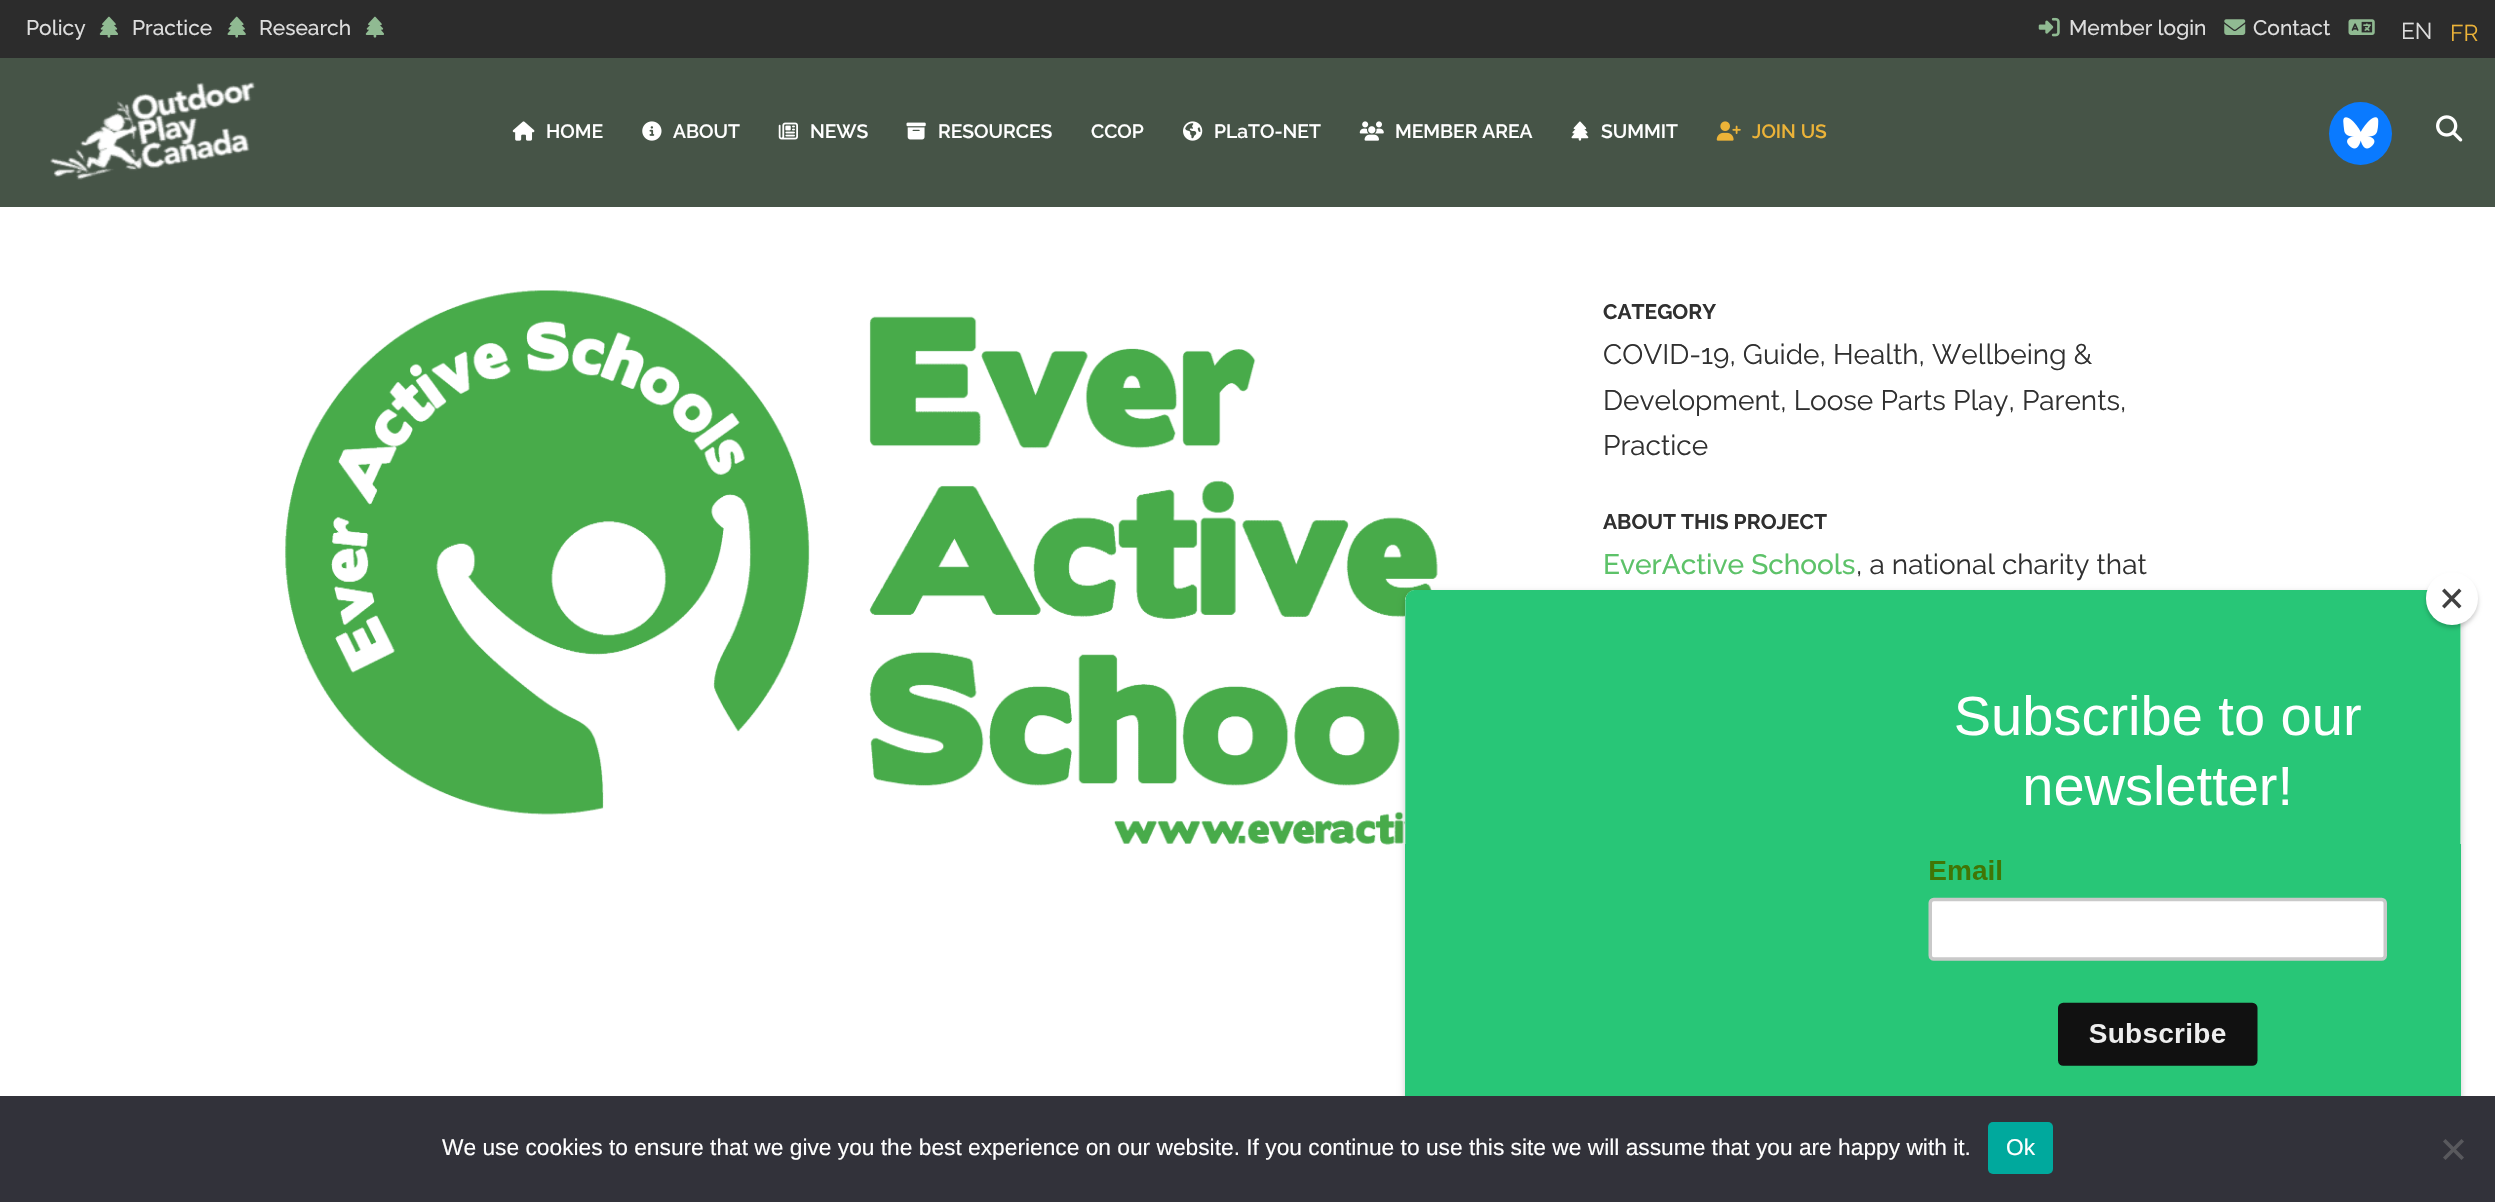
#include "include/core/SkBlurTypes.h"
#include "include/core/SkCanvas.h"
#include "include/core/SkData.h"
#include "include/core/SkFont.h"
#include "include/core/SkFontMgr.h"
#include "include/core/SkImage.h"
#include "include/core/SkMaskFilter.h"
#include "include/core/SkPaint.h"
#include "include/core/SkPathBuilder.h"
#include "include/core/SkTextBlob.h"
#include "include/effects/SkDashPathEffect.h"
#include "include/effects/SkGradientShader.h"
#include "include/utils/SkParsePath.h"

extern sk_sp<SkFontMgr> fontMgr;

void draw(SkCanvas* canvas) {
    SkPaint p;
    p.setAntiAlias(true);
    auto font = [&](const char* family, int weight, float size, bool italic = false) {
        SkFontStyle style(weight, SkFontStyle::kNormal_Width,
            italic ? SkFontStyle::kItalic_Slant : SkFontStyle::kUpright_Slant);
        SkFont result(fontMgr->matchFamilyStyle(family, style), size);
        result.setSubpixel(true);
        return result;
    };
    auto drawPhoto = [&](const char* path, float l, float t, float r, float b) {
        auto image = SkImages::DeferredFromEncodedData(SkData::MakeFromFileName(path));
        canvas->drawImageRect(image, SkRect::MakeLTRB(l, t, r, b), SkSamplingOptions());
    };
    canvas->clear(0xFFFFFFFF);
    p.setColor(0xFF2C2C2C);
    canvas->drawRect(SkRect::MakeLTRB(0, 0, 2495, 58), p);
    auto font1 = font("Raleway", 500, 21);
    p.setColor(0xFFDDDDDD);
    canvas->drawString("Policy", 26, 35, font1, p);
    drawPhoto("media/1.png", 99, 16, 118, 38);
    canvas->drawString("Practice", 132, 35, font1, p);
    drawPhoto("media/2.png", 227, 16, 246, 38);
    canvas->drawString("Research", 259, 35, font1, p);
    drawPhoto("media/1.png", 365, 16, 384, 38);
    drawPhoto("media/3.png", 2038, 17, 2060, 37);
    canvas->drawString("Member login", 2069, 35, font1, p);
    drawPhoto("media/4.png", 2224, 19, 2246, 35);
    canvas->drawString("Contact", 2253, 35, font1, p);
    drawPhoto("media/5.png", 2348, 19, 2375, 35);
    auto font2 = font("Raleway", 400, 22.75f);
    canvas->drawString("EN", 2401, 39, font2, p);
    p.setColor(0xFFECB338);
    canvas->drawString("FR", 2450, 41, font2, p);
    p.setColor(0xFF465447);
    canvas->drawRect(SkRect::MakeLTRB(0, 58, 2495, 207), p);
    drawPhoto("media/6.png", 50, 82, 256, 180);
    drawPhoto("media/7.png", 512, 121, 535, 141);
    auto font3 = font("Raleway", 600, 19.25f);
    p.setColor(0xFFFFFFFF);
    canvas->drawString("HOME", 546, 138, font3, p);
    drawPhoto("media/8.png", 642, 121, 662, 141);
    canvas->drawString("ABOUT", 673, 138, font3, p);
    drawPhoto("media/9.png", 778, 122, 798, 140);
    canvas->drawString("NEWS", 810, 138, font3, p);
    drawPhoto("media/10.png", 906, 122, 926, 140);
    canvas->drawString("RESOURCES", 938, 138, font3, p);
    canvas->drawString("CCOP", 1091, 138, font3, p);
    drawPhoto("media/11.png", 1183, 121, 1203, 141);
    canvas->drawString("PLaTO-NET", 1214, 138, font3, p);
    drawPhoto("media/12.png", 1359, 121, 1384, 141);
    canvas->drawString("MEMBER AREA", 1395, 138, font3, p);
    drawPhoto("media/13.png", 1571, 121, 1589, 141);
    canvas->drawString("SUMMIT", 1601, 138, font3, p);
    drawPhoto("media/14.png", 1716, 121, 1741, 141);
    p.setColor(0xFFECB338);
    canvas->drawString("JOIN US", 1752, 138, font3, p);
    p.setColor(0xFF0A7AFF);
    canvas->drawCircle(2360.5f, 133.5f, 31.5f, p);
    drawPhoto("media/15.png", 2343, 117, 2379, 149);
    drawPhoto("media/16.png", 2436, 115, 2463, 142);
    drawPhoto("media/17.png", 285, 290, 1438, 845);
    auto font4 = font("Raleway", 700, 21);
    p.setColor(0xFF303030);
    canvas->drawString("CATEGORY", 1603, 319, font4, p);
    auto font5 = font("Raleway", 400, 28);
    {
        const struct { const char* s; float x, y; } items[] = {
            {"COVID-19, Guide, Health, Wellbeing &", 1603, 364},
            {"Development, Loose Parts Play, Parents,", 1603, 410},
            {"Practice", 1603, 455},
        };
        for (auto [s, x, y] : items) {
            canvas->drawString(s, x, y, font5, p);
        }
    }
    canvas->drawString("ABOUT THIS PROJECT", 1603, 529, font4, p);
    auto font6 = font("Raleway", 500, 28);
    p.setColor(0xFF5DC269);
    canvas->drawString("EverActive Schools", 1603, 574, font6, p);
    p.setColor(0xFF303030);
    canvas->drawString(", a national charity that", 1856, 574, font5, p);
    p.setColor(0x33000000);
    p.setMaskFilter(SkMaskFilter::MakeBlur(kNormal_SkBlurStyle, 3.5f));
    canvas->drawRoundRect(SkRect::MakeLTRB(1405, 593, 2461, 1171), 11, 11, p);
    p.setMaskFilter(nullptr);
    p.setColor(0xFFFFFFFF);
    canvas->drawRoundRect(SkRect::MakeLTRB(1405, 590, 2461, 1167), 11, 11, p);
    drawPhoto("media/18.png", 1405, 590, 2461, 1096);
    p.setColor(0x33000000);
    p.setMaskFilter(SkMaskFilter::MakeBlur(kNormal_SkBlurStyle, 2));
    canvas->drawRoundRect(SkRect::MakeLTRB(2426, 576, 2478, 628), 26, 26, p);
    p.setMaskFilter(nullptr);
    p.setColor(0xFFFFFFFF);
    canvas->drawRoundRect(SkRect::MakeLTRB(2426, 572, 2478, 625), 26, 26, p);
    p.setColor(0xFF414141);
    canvas->drawPath(SkPathBuilder().moveTo(2459, 588.5f).lineTo(2461.5f, 591).lineTo(2444.5f, 608.5f).lineTo(2442, 606).close().detach(), p);
    canvas->drawPath(SkPathBuilder().moveTo(2442, 591).lineTo(2444.5f, 588.5f).lineTo(2461.5f, 606).lineTo(2459, 608.5f).close().detach(), p);
    p.setColor(0xFF32323A);
    canvas->drawRect(SkRect::MakeLTRB(0, 1096, 2495, 1202), p);
    auto font7 = font("Liberation Sans", 400, 22.75f);
    p.setColor(0xFFFFFFFF);
    canvas->drawString("We use cookies to ensure that we give you the best experience on our website. If you continue to use this site we will assume that you are happy with it.", 442, 1155, font7, p);
    p.setColor(0xFF00A99D);
    canvas->drawRoundRect(SkRect::MakeLTRB(1988, 1122, 2053, 1174), 5, 5, p);
    p.setColor(0xFFFFFFFF);
    canvas->drawString("Ok", 2006, 1155, font7, p);
    p.setColor(0xFF59595D);
    canvas->drawPath(SkPathBuilder().moveTo(2461.5f, 1139).lineTo(2464, 1141.5f).lineTo(2445.5f, 1160).lineTo(2443, 1157.5f).close().detach(), p);
    canvas->drawPath(SkPathBuilder().moveTo(2443, 1141.5f).lineTo(2445.5f, 1139).lineTo(2464, 1157.5f).lineTo(2461.5f, 1160).close().detach(), p);
}
